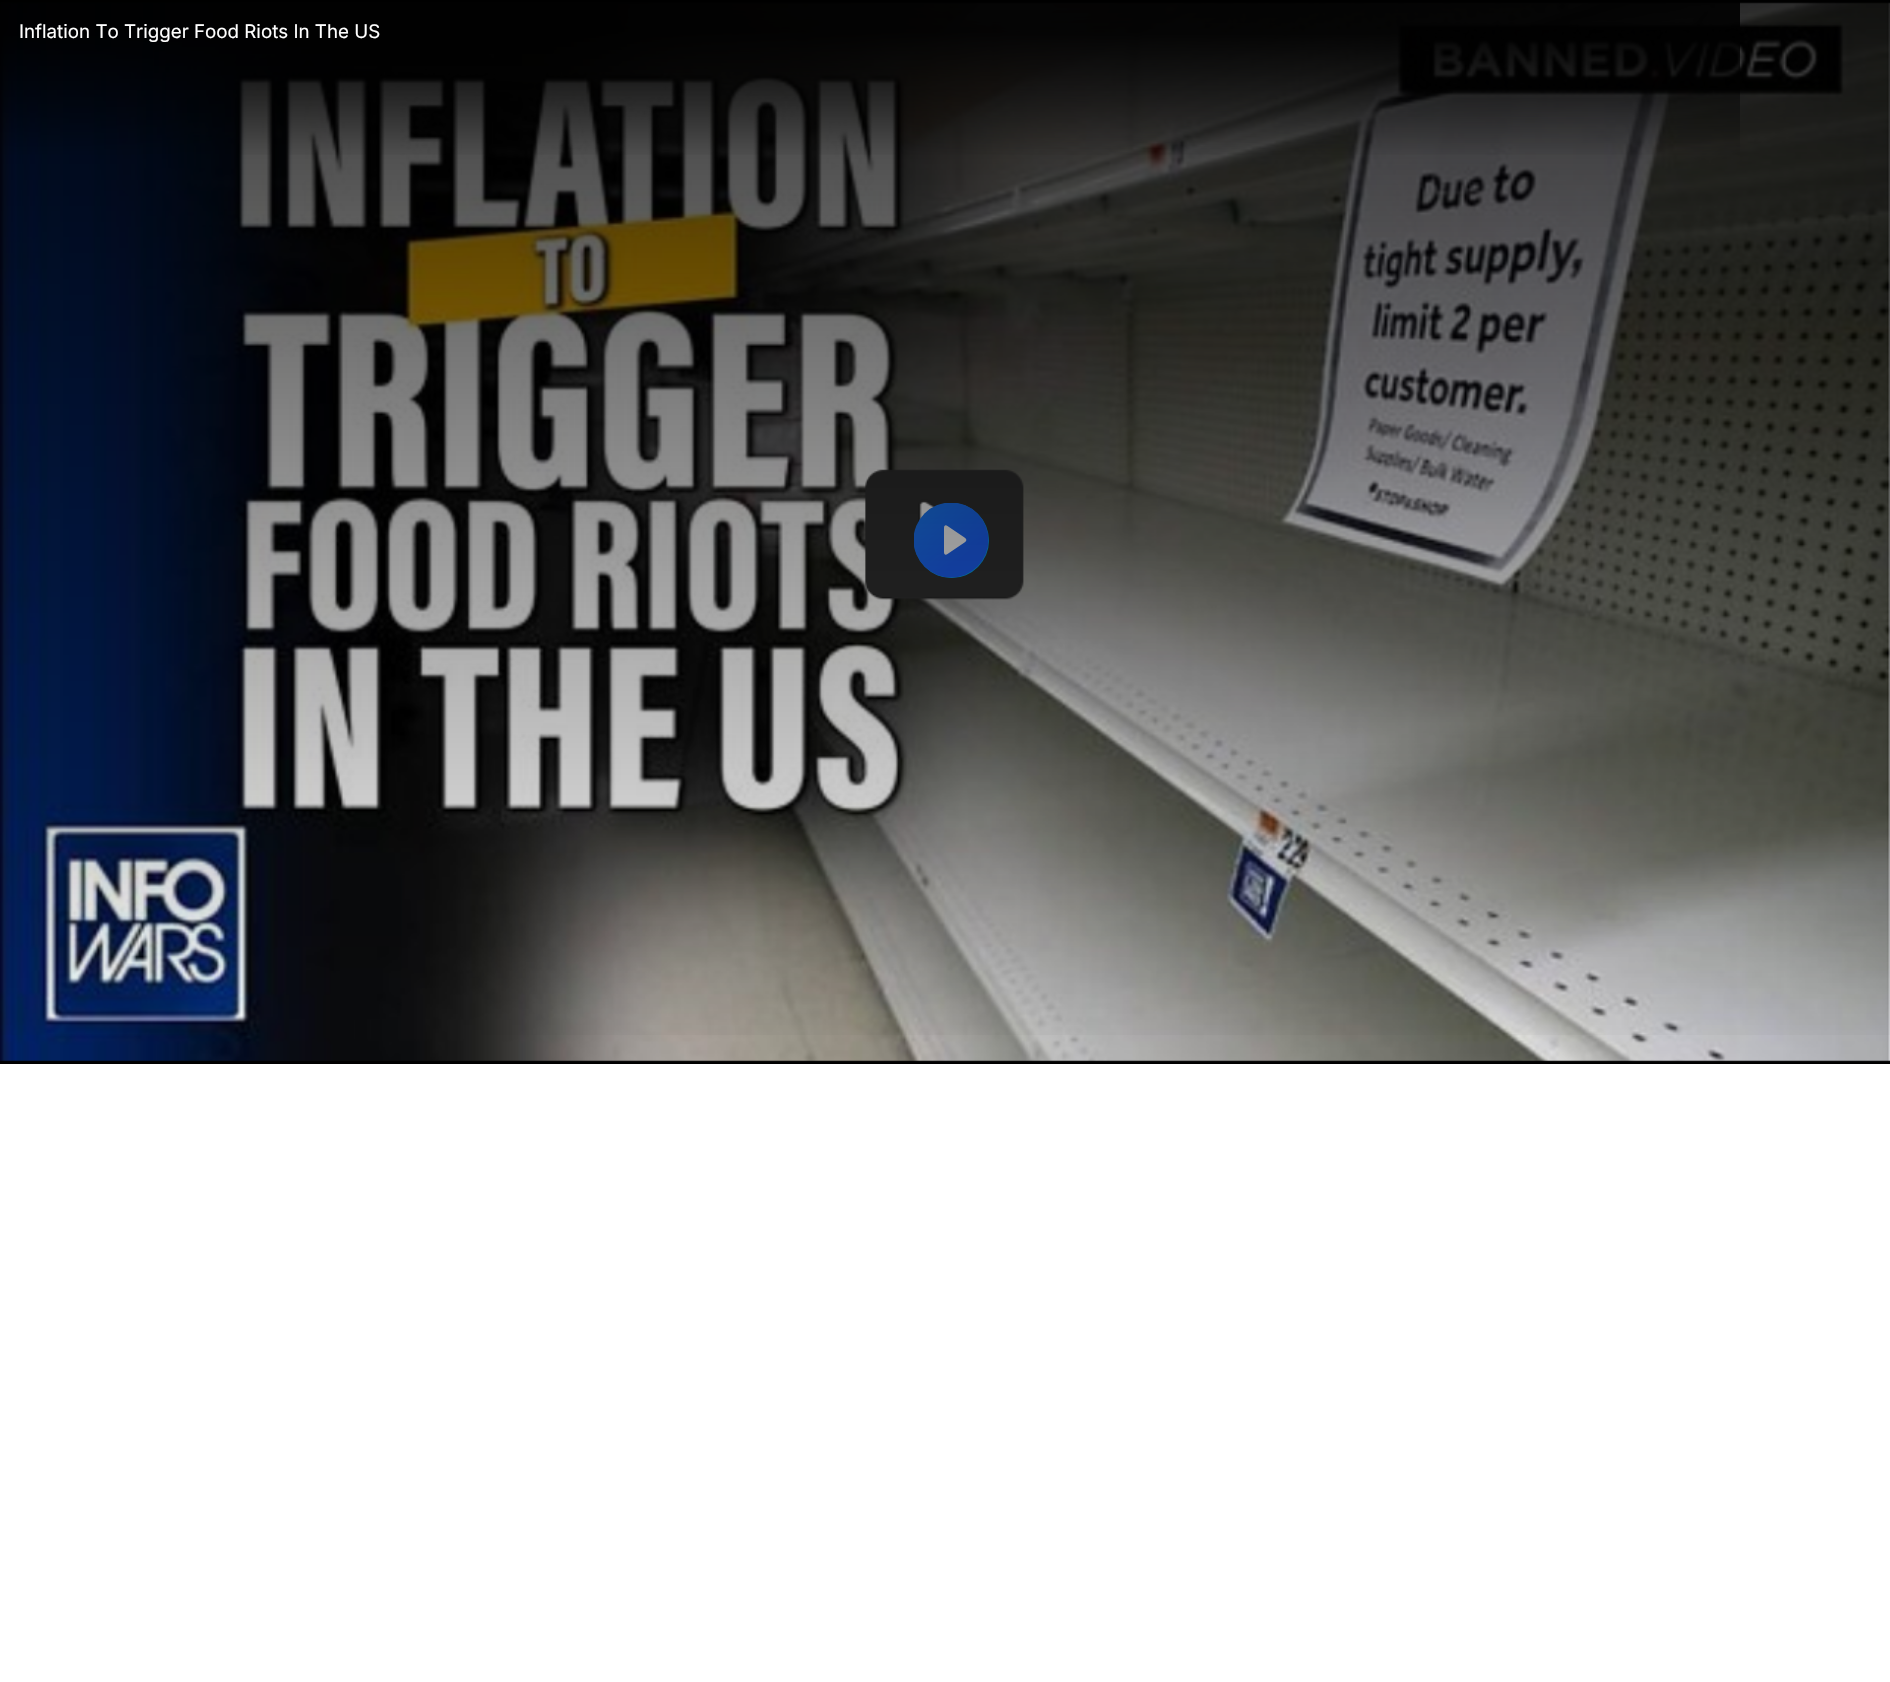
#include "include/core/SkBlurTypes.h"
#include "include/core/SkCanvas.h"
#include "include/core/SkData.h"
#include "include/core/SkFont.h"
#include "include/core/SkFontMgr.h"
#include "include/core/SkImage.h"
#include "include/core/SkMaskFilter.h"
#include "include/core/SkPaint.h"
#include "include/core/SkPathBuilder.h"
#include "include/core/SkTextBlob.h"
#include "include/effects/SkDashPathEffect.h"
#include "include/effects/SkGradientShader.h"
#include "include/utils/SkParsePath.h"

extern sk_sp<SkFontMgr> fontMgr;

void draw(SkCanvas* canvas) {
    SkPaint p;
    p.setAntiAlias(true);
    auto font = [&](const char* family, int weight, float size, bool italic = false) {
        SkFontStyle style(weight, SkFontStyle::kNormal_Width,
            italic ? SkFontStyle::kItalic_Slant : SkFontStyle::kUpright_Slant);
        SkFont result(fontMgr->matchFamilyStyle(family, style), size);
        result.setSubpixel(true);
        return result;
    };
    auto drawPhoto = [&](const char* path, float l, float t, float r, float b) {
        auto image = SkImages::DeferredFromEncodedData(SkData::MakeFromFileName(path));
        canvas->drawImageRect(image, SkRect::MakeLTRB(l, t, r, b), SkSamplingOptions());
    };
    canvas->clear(0xFFFFFFFF);
    p.setColor(0xFF000000);
    canvas->drawRect(SkRect::MakeLTRB(0, 0, 1890, 1064), p);
    drawPhoto("media/1.png", 0, 2, 1890, 1062);
    p.setColor(0xFF01AEF0);
    canvas->drawCircle(951.5f, 540.5f, 37.5f, p);
    canvas->save();
    canvas->clipRect(SkRect::MakeLTRB(914, 503, 989, 578));
    {
        const SkColor colors[] = {0xFF1A7EFA, 0xFF1C61F9};
        const float stops[] = {0, 1};
        const SkPoint ends[] = {{919, 502}, {964, 556}};
        p.setShader(SkGradientShader::MakeLinear(ends, colors, stops, 2, SkTileMode::kClamp));
        p.setAlpha(255);
    }
    canvas->drawCircle(951, 540, 37.5f, p);
    canvas->restore();
    p.setShader(nullptr);
    p.setColor(0xFFFFFFFF);
    canvas->drawPath(SkPathBuilder().moveTo(947.5f, 554).cubicTo(945.5f, 555.5f, 944, 554.5f, 944, 552).lineTo(944, 528).cubicTo(944, 525.5f, 945.5f, 524.5f, 947.5f, 526).lineTo(964.5f, 537.5f).cubicTo(967, 539, 967, 541, 964.5f, 542.5f).close().detach(), p);
    {
        const SkColor colors[] = {0xCC000000, 0x00000000};
        const float stops[] = {0, 1};
        const SkPoint ends[] = {{945, 0}, {945, 1064}};
        p.setShader(SkGradientShader::MakeLinear(ends, colors, stops, 2, SkTileMode::kClamp));
        p.setAlpha(255);
    }
    canvas->drawRect(SkRect::MakeLTRB(0, 2, 1890, 1035), p);
    {
        const SkColor colors[] = {0xE6000000, 0x00000000};
        const float stops[] = {0.2f, 1};
        const SkPoint ends[] = {{870, 0}, {870, 160}};
        p.setShader(SkGradientShader::MakeLinear(ends, colors, stops, 2, SkTileMode::kClamp));
        p.setAlpha(255);
    }
    canvas->drawRect(SkRect::MakeLTRB(0, 2, 1740, 155), p);
    auto font1 = font("Inter", 400, 18.75f);
    p.setShader(nullptr);
    p.setColor(0xFFFFFFFF);
    canvas->drawString("Inflation To Trigger Food Riots In The US", 19, 38, font1, p);
}
